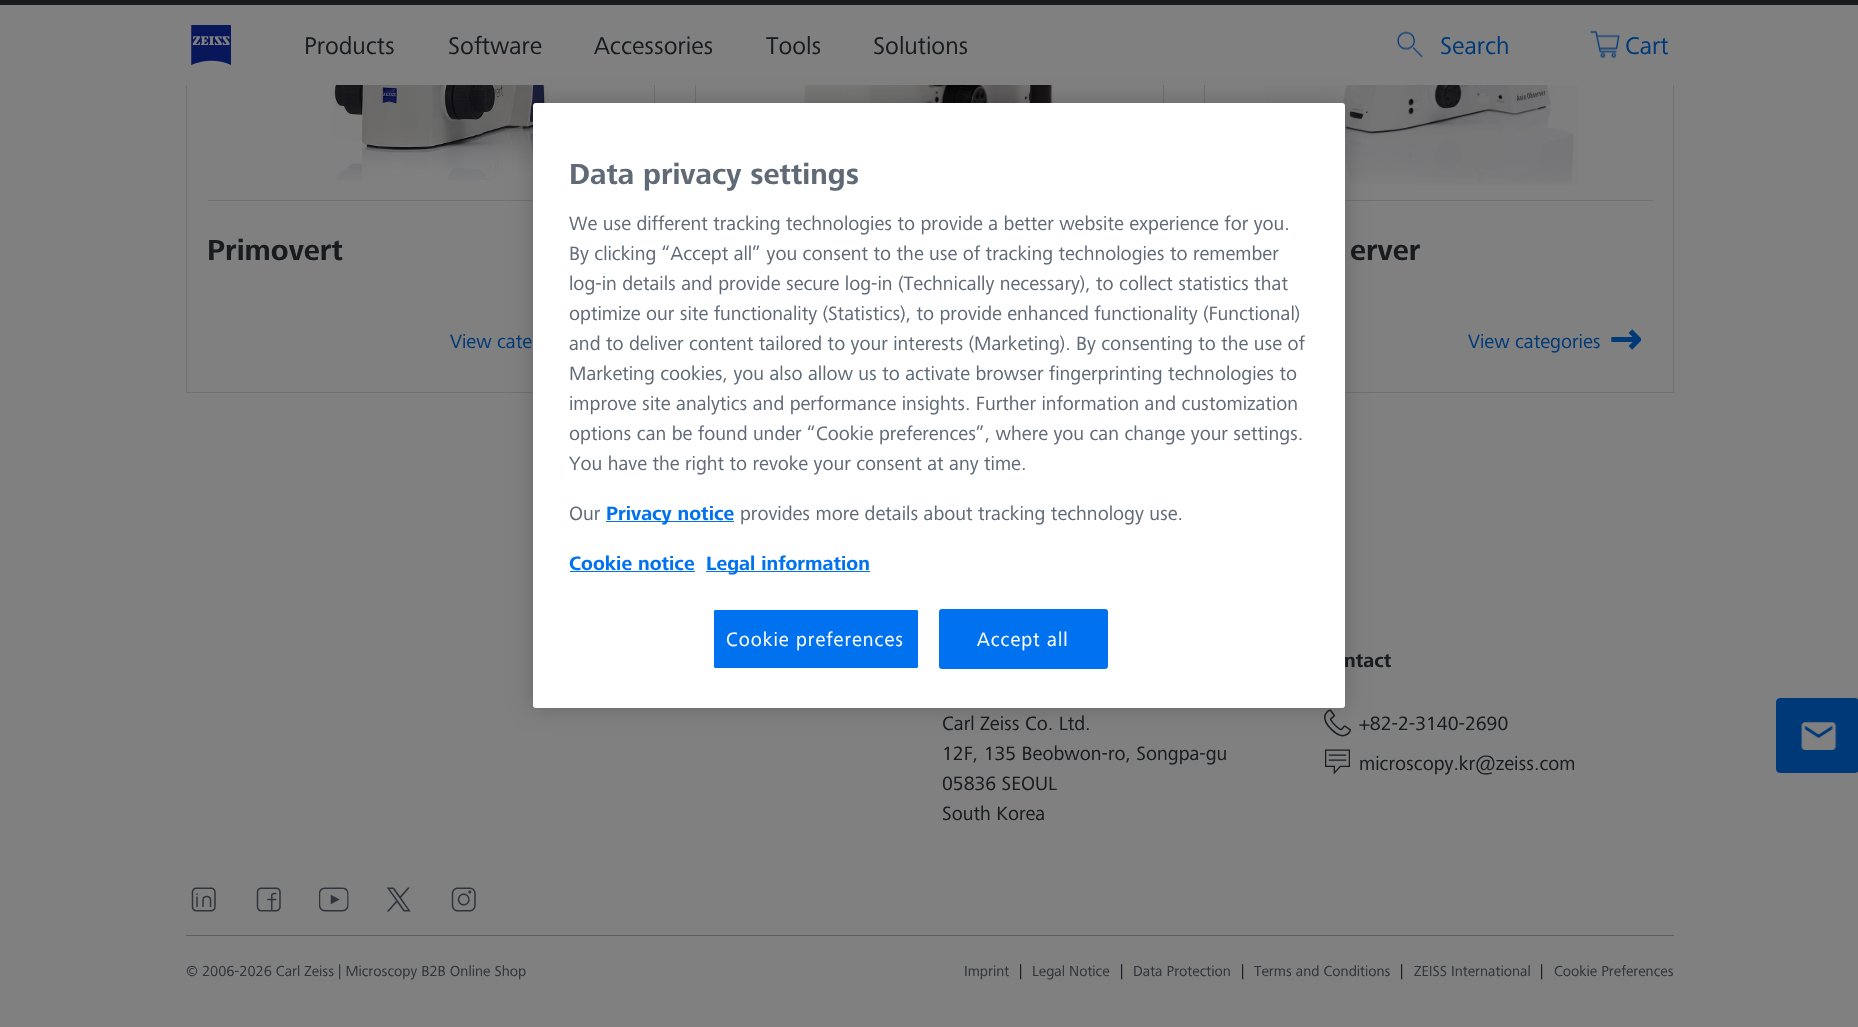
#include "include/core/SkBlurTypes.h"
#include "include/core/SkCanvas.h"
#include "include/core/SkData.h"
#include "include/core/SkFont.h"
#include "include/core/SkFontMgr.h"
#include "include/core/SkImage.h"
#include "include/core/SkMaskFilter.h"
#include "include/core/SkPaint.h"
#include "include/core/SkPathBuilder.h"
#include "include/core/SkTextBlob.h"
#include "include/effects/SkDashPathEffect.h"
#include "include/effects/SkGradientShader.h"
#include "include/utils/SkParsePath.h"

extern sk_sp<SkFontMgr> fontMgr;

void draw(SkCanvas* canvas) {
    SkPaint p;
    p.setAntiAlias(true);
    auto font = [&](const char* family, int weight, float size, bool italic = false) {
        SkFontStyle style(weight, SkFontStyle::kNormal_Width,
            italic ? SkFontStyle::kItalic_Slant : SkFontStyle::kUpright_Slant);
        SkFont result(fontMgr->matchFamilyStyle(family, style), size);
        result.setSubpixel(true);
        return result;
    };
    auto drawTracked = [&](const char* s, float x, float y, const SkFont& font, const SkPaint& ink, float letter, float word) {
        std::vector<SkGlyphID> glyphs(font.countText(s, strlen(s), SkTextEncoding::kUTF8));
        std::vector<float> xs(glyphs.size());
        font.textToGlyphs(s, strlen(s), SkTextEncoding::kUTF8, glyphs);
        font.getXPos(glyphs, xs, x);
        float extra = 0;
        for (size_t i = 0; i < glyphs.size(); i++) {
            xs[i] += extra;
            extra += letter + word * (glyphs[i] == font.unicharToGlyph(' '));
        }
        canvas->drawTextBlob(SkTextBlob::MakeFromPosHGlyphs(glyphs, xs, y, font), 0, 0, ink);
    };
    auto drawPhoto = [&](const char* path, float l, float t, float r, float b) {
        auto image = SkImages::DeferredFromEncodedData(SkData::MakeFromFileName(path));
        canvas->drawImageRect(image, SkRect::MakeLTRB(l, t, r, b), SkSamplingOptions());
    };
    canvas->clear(0xFF808080);
    p.setStyle(SkPaint::kStroke_Style);
    p.setStrokeWidth(1);
    p.setColor(0xFF70716F);
    canvas->drawRect(SkRect::MakeLTRB(186.5f, -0.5f, 654.5f, 392.5f), p);
    canvas->drawRect(SkRect::MakeLTRB(695.5f, -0.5f, 1163.5f, 392.5f), p);
    canvas->drawRect(SkRect::MakeLTRB(1204.5f, -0.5f, 1673.5f, 392.5f), p);
    p.setStyle(SkPaint::kFill_Style);
    p.setColor(0xFF191C1F);
    canvas->drawRect(SkRect::MakeLTRB(0, 0, 1858, 5), p);
    p.setColor(0xFF808080);
    canvas->drawRect(SkRect::MakeLTRB(186, 5, 1674, 85), p);
    drawPhoto("media/1.png", 191, 25, 231, 65);
    auto font1 = font("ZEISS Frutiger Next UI", 400, 25);
    p.setColor(0xFF191C1F);
    {
        const struct { const char* s; float x, y; } items[] = {
            {"Products", 304, 54},
            {"Software", 448, 54},
            {"Accessories", 594, 54},
            {"Tools", 766, 54},
            {"Solutions", 873, 54},
        };
        for (auto [s, x, y] : items) {
            canvas->drawString(s, x, y, font1, p);
        }
    }
    drawPhoto("media/2.png", 1397, 31, 1423, 58);
    p.setColor(0xFF003978);
    canvas->drawString("Search", 1440, 54, font1, p);
    drawPhoto("media/3.png", 1590, 30, 1620, 59);
    canvas->drawString("Cart", 1625, 54, font1, p);
    drawPhoto("media/4.png", 331, 85, 549, 180);
    p.setColor(0xFF70716F);
    canvas->drawRect(SkRect::MakeLTRB(208, 200, 533, 201), p);
    auto font2 = font("ZEISS Frutiger Next UI", 700, 30);
    p.setColor(0xFF191C1F);
    canvas->drawString("Primovert", 207, 260, font2, p);
    auto font3 = font("ZEISS Frutiger Next UI", 400, 20);
    p.setColor(0xFF003978);
    canvas->drawString("View cate", 450, 348, font3, p);
    drawPhoto("media/5.png", 737, 85, 1090, 103);
    drawPhoto("media/6.png", 1266, 85, 1579, 185);
    p.setColor(0xFF70716F);
    canvas->drawRect(SkRect::MakeLTRB(1345, 200, 1653, 201), p);
    p.setColor(0xFF191C1F);
    canvas->drawString("erver", 1350, 260, font2, p);
    p.setColor(0xFF003978);
    canvas->drawString("View categories", 1468, 348, font3, p);
    drawPhoto("media/7.png", 1611, 329, 1642, 350);
    canvas->drawRoundRect(SkRect::MakeLTRB(1776.5f, 698.5f, 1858.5f, 772.5f), 3.5f, 3.5f, p);
    p.setStyle(SkPaint::kStroke_Style);
    canvas->drawRoundRect(SkRect::MakeLTRB(1776.5f, 698.5f, 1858.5f, 772.5f), 3.5f, 3.5f, p);
    drawPhoto("media/8.png", 1801, 722, 1837, 750);
    drawPhoto("media/9.png", 1324, 709, 1351, 737);
    p.setStyle(SkPaint::kFill_Style);
    p.setColor(0x33000000);
    p.setMaskFilter(SkMaskFilter::MakeBlur(kNormal_SkBlurStyle, 11));
    canvas->drawRoundRect(SkRect::MakeLTRB(533, 103, 1345, 708), 3, 3, p);
    p.setMaskFilter(nullptr);
    p.setColor(0xFFFFFFFF);
    canvas->drawRoundRect(SkRect::MakeLTRB(533, 103, 1345, 708), 3, 3, p);
    p.setColor(0xFF606A76);
    canvas->drawString("Data privacy settings", 569, 184, font2, p);
    {
        const struct { const char* s; float x, y; } items[] = {
            {"We use different tracking technologies to provide a better website experience for you.", 569, 230},
            {"By clicking “Accept all” you consent to the use of tracking technologies to remember", 569, 260},
            {"log-in details and provide secure log-in (Technically necessary), to collect statistics that", 569, 290},
            {"optimize our site functionality (Statistics), to provide enhanced functionality (Functional)", 569, 320},
            {"and to deliver content tailored to your interests (Marketing). By consenting to the use of", 569, 350},
            {"Marketing cookies, you also allow us to activate browser fingerprinting technologies to", 569, 380},
            {"improve site analytics and performance insights. Further information and customization", 569, 410},
            {"options can be found under “Cookie preferences”, where you can change your settings.", 569, 440},
            {"You have the right to revoke your consent at any time.", 569, 470},
            {"Our", 569, 520},
        };
        for (auto [s, x, y] : items) {
            canvas->drawString(s, x, y, font3, p);
        }
    }
    p.setColor(0xFF0072EF);
    canvas->drawRect(SkRect::MakeLTRB(606, 521, 734, 522), p);
    auto font4 = font("ZEISS Frutiger Next UI", 700, 20);
    canvas->drawString("Privacy notice", 606, 520, font4, p);
    p.setColor(0xFF606A76);
    canvas->drawString("provides more details about tracking technology use.", 740, 520, font3, p);
    p.setColor(0xFF0072EF);
    canvas->drawString("Cookie notice", 569, 570, font4, p);
    canvas->drawRect(SkRect::MakeLTRB(570, 571, 695, 572), p);
    canvas->drawRect(SkRect::MakeLTRB(706, 571, 870, 572), p);
    canvas->drawString("Legal information", 706, 570, font4, p);
    canvas->drawRoundRect(SkRect::MakeLTRB(713.5f, 609.5f, 918.5f, 668.5f), 2, 2, p);
    p.setStyle(SkPaint::kStroke_Style);
    p.setColor(0xFFFFFFFF);
    canvas->drawRoundRect(SkRect::MakeLTRB(713.5f, 609.5f, 918.5f, 668.5f), 2, 2, p);
    p.setStyle(SkPaint::kFill_Style);
    drawTracked("Cookie preferences", 726, 646, font3, p, 1, 0);
    p.setColor(0xFF0072EF);
    canvas->drawRoundRect(SkRect::MakeLTRB(939.5f, 609.5f, 1107.5f, 668.5f), 2, 2, p);
    p.setStyle(SkPaint::kStroke_Style);
    canvas->drawRoundRect(SkRect::MakeLTRB(939.5f, 609.5f, 1107.5f, 668.5f), 2, 2, p);
    p.setStyle(SkPaint::kFill_Style);
    p.setColor(0xFFFFFFFF);
    drawTracked("Accept all", 977, 646, font3, p, 1, 0);
    p.setColor(0xFF191C1F);
    {
        const struct { const char* s; float x, y; } items[] = {
            {"Carl Zeiss Co. Ltd.", 942, 730},
            {"12F, 135 Beobwon-ro, Songpa-gu", 942, 760},
            {"05836 SEOUL", 942, 790},
            {"South Korea", 942, 820},
        };
        for (auto [s, x, y] : items) {
            canvas->drawString(s, x, y, font3, p);
        }
    }
    canvas->drawString("ntact", 1344, 667, font4, p);
    canvas->drawString("+82-2-3140-2690", 1359, 730, font3, p);
    drawPhoto("media/10.png", 1325, 749, 1350, 775);
    canvas->drawString("microscopy.kr@zeiss.com", 1359, 770, font3, p);
    drawPhoto("media/11.png", 191, 887, 216, 912);
    drawPhoto("media/12.png", 256, 887, 281, 912);
    drawPhoto("media/13.png", 319, 887, 349, 912);
    drawPhoto("media/14.png", 386, 887, 411, 912);
    drawPhoto("media/15.png", 451, 887, 476, 912);
    p.setColor(0xFF5A6065);
    canvas->drawRect(SkRect::MakeLTRB(186, 935, 1674, 936), p);
    auto font5 = font("ZEISS Frutiger Next UI", 400, 15);
    p.setColor(0xFF30353B);
    canvas->drawString("© 2006-2026 Carl Zeiss | Microscopy B2B Online Shop", 186, 976, font5, p);
    canvas->drawString("Imprint", 964, 976, font5, p);
    p.setColor(0xFF191C1F);
    canvas->drawString("|", 1019, 976, font5, p);
    p.setColor(0xFF30353B);
    canvas->drawString("Legal Notice", 1032, 976, font5, p);
    p.setColor(0xFF191C1F);
    canvas->drawString("|", 1120, 976, font5, p);
    p.setColor(0xFF30353B);
    canvas->drawString("Data Protection", 1133, 976, font5, p);
    p.setColor(0xFF191C1F);
    canvas->drawString("|", 1241, 976, font5, p);
    p.setColor(0xFF30353B);
    canvas->drawString("Terms and Conditions", 1254, 976, font5, p);
    p.setColor(0xFF191C1F);
    canvas->drawString("|", 1400, 976, font5, p);
    p.setColor(0xFF30353B);
    canvas->drawString("ZEISS International", 1414, 976, font5, p);
    p.setColor(0xFF191C1F);
    canvas->drawString("|", 1540, 976, font5, p);
    p.setColor(0xFF30353B);
    canvas->drawString("Cookie Preferences", 1554, 976, font5, p);
}
